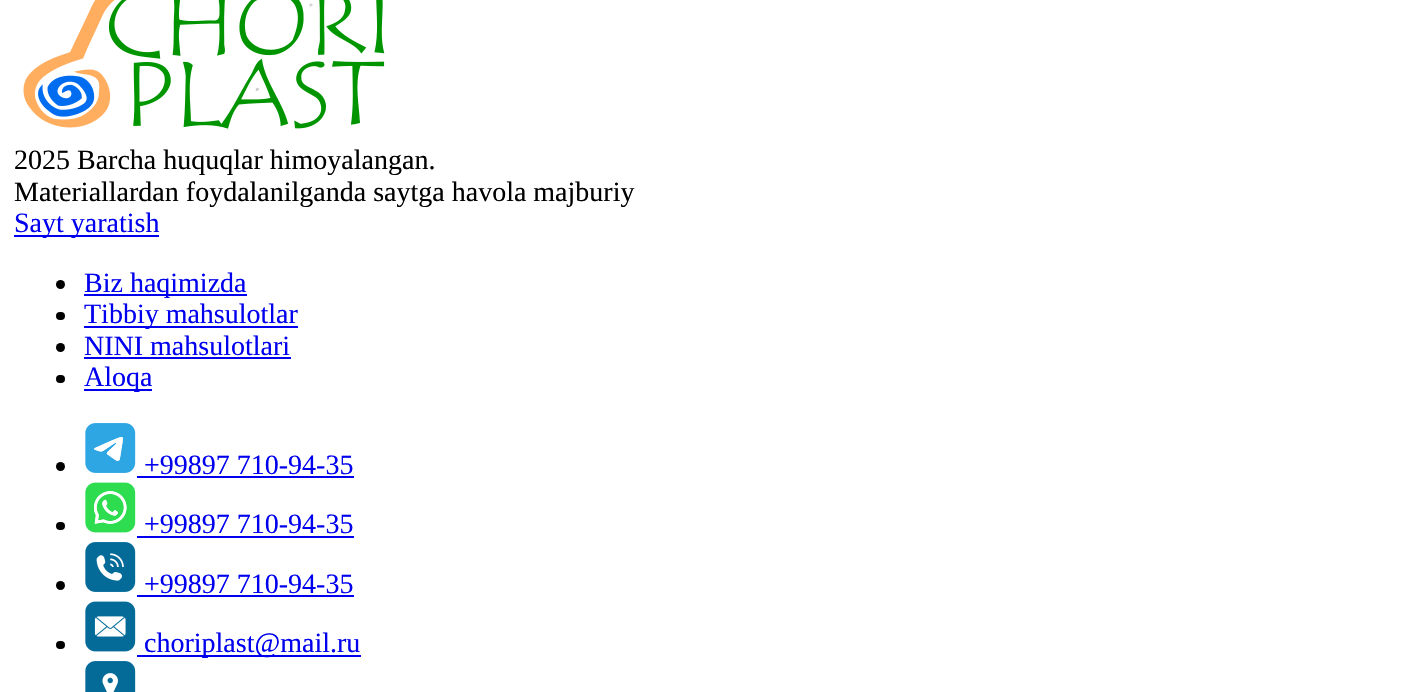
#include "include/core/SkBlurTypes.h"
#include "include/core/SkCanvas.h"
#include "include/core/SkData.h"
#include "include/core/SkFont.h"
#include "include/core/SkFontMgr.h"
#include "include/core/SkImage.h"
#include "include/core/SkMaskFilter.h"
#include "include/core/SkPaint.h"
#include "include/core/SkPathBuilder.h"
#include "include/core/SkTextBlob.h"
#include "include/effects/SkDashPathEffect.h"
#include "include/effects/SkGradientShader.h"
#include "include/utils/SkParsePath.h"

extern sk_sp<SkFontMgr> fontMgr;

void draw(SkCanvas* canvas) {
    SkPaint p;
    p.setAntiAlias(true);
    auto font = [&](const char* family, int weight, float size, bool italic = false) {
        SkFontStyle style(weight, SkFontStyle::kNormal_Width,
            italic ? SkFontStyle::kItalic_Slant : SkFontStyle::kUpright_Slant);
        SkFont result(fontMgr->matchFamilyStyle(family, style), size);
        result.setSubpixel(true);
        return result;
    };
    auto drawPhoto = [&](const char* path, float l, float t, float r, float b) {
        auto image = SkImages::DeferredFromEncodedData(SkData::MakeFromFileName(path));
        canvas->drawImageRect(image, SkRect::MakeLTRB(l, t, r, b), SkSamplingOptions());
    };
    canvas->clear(0xFFFFFFFF);
    drawPhoto("media/1.png", 23, 0, 385, 129);
    auto font1 = font("Liberation Serif", 400, 28);
    p.setColor(0xFF000000);
    canvas->drawString("2025 Barcha huquqlar himoyalangan.", 14, 169, font1, p);
    canvas->drawString("Materiallardan foydalanilganda saytga havola majburiy", 14, 201, font1, p);
    p.setColor(0xFF0000EE);
    canvas->drawRect(SkRect::MakeLTRB(14, 235, 159, 237), p);
    canvas->drawString("Sayt yaratish", 14, 232, font1, p);
    p.setColor(0xFF000000);
    canvas->drawCircle(60.5f, 284.5f, 4.5f, p);
    p.setColor(0xFF0000EE);
    canvas->drawRect(SkRect::MakeLTRB(84, 294, 247, 296), p);
    canvas->drawString("Biz haqimizda", 84, 292, font1, p);
    p.setColor(0xFF000000);
    canvas->drawRoundRect(SkRect::MakeLTRB(56, 312, 65, 320), 4, 4, p);
    p.setColor(0xFF0000EE);
    canvas->drawRect(SkRect::MakeLTRB(84, 326, 298, 328), p);
    canvas->drawString("Tibbiy mahsulotlar", 84, 323, font1, p);
    p.setColor(0xFF000000);
    canvas->drawCircle(60.5f, 347.5f, 4.5f, p);
    p.setColor(0xFF0000EE);
    canvas->drawString("NINI mahsulotlari", 84, 355, font1, p);
    canvas->drawRect(SkRect::MakeLTRB(84, 357, 291, 359), p);
    p.setColor(0xFF000000);
    canvas->drawRoundRect(SkRect::MakeLTRB(56, 375, 65, 383), 4, 4, p);
    p.setColor(0xFF0000EE);
    canvas->drawRect(SkRect::MakeLTRB(84, 389, 152, 391), p);
    canvas->drawString("Aloqa", 84, 386, font1, p);
    p.setColor(0xFF000000);
    canvas->drawCircle(60.5f, 466.5f, 4.5f, p);
    drawPhoto("media/2.png", 85, 423, 136, 473);
    p.setColor(0xFF0000EE);
    canvas->drawString("+99897 710-94-35", 144, 474, font1, p);
    canvas->drawRect(SkRect::MakeLTRB(137, 476, 354, 478), p);
    p.setColor(0xFF000000);
    canvas->drawRoundRect(SkRect::MakeLTRB(56, 522, 65, 530), 4, 4, p);
    drawPhoto("media/3.png", 85, 482, 136, 533);
    p.setColor(0xFF0000EE);
    canvas->drawString("+99897 710-94-35", 144, 533, font1, p);
    canvas->drawRect(SkRect::MakeLTRB(137, 536, 354, 538), p);
    p.setColor(0xFF000000);
    canvas->drawCircle(60.5f, 585.5f, 4.5f, p);
    drawPhoto("media/4.png", 85, 542, 136, 592);
    p.setColor(0xFF0000EE);
    canvas->drawString("+99897 710-94-35", 144, 593, font1, p);
    canvas->drawRect(SkRect::MakeLTRB(137, 595, 354, 597), p);
    p.setColor(0xFF000000);
    canvas->drawRoundRect(SkRect::MakeLTRB(56, 641, 65, 649), 4, 4, p);
    drawPhoto("media/5.png", 85, 601, 136, 652);
    p.setColor(0xFF0000EE);
    canvas->drawRect(SkRect::MakeLTRB(137, 655, 361, 657), p);
    canvas->drawString("choriplast@mail.ru", 144, 652, font1, p);
    drawPhoto("media/6.png", 85, 661, 136, 692);
}
